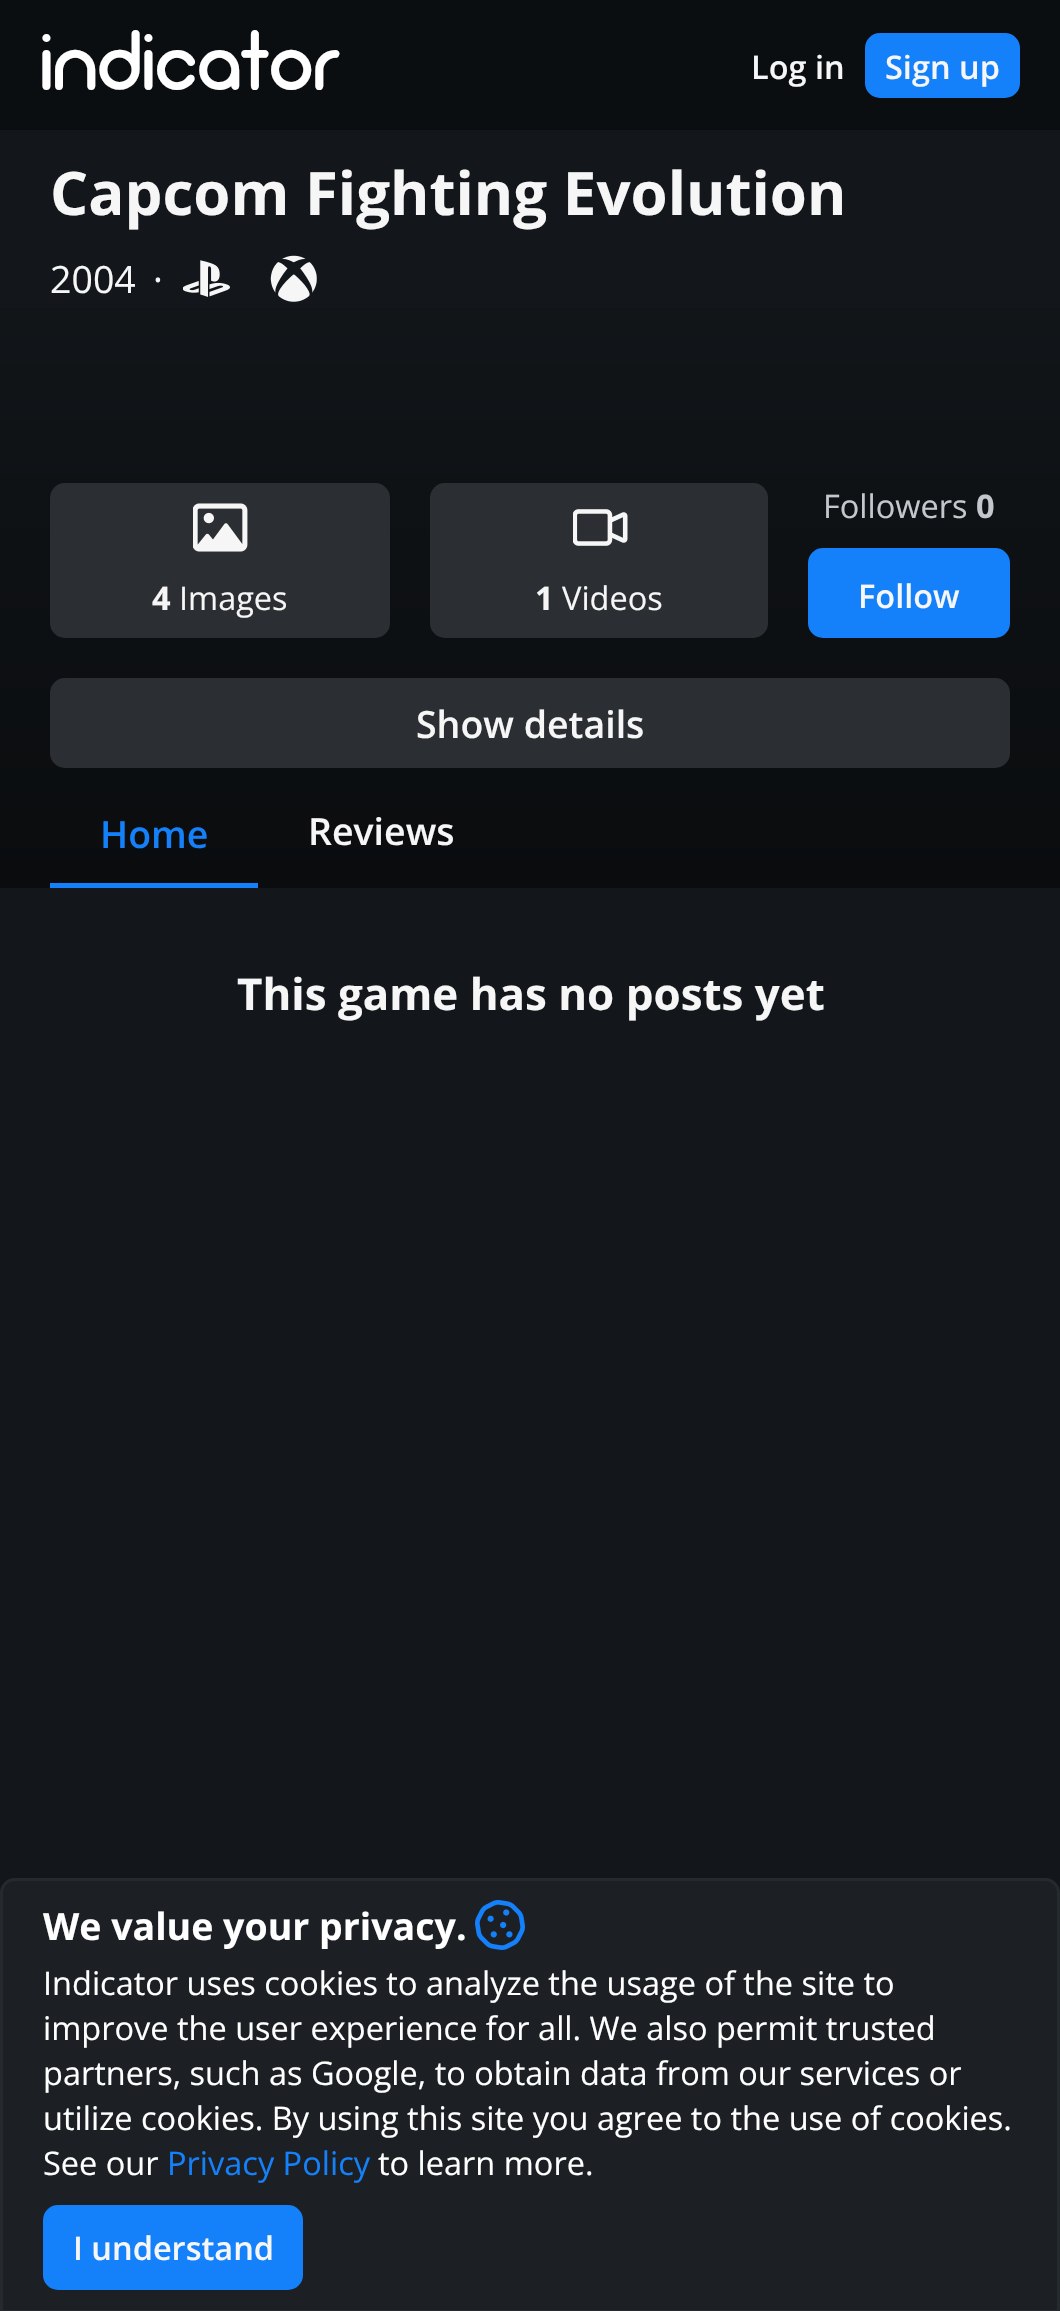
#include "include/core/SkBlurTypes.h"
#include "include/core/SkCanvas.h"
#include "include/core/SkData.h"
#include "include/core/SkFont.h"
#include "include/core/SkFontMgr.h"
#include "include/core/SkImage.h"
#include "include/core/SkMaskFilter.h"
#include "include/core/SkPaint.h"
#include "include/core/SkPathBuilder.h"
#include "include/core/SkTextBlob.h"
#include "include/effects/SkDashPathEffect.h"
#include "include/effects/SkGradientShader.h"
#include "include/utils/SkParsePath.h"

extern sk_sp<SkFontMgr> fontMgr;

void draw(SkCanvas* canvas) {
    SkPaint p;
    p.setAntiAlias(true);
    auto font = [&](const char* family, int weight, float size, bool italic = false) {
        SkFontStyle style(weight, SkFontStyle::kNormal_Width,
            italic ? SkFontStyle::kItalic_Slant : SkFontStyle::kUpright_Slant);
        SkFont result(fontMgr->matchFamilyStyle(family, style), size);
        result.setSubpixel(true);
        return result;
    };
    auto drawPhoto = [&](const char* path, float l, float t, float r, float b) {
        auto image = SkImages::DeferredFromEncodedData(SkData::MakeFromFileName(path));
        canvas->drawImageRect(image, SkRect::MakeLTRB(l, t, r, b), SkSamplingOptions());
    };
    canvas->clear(0xFF13171B);
    p.setColor(0xFF0B0E10);
    canvas->drawRect(SkRect::MakeLTRB(0, 0, 1060, 130), p);
    auto font1 = font("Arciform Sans", 400, 80);
    p.setColor(0xFFFFFFFF);
    canvas->drawString("indicator", 40, 90, font1, p);
    auto font2 = font("Open Sans", 600, 32.5f);
    p.setColor(0xFFF6F6F6);
    canvas->drawString("Log in", 751, 79, font2, p);
    p.setColor(0xFF1480F9);
    canvas->drawRoundRect(SkRect::MakeLTRB(865, 33, 1020, 98), 15, 15, p);
    p.setColor(0xFFF6F6F6);
    canvas->drawString("Sign up", 885, 79, font2, p);
    {
        const SkColor colors[] = {0xFF0D1013, 0xFF0A0C0E, 0xFF13171B};
        const float stops[] = {0, 0, 1};
        const SkPoint ends[] = {{530, 888}, {530, 170}};
        p.setShader(SkGradientShader::MakeLinear(ends, colors, stops, 3, SkTileMode::kClamp));
        p.setAlpha(255);
    }
    canvas->drawRect(SkRect::MakeLTRB(0, 308, 1060, 888), p);
    auto font3 = font("Open Sans", 700, 60);
    p.setShader(nullptr);
    p.setColor(0xFFF6F6F6);
    canvas->drawString("Capcom Fighting Evolution", 50, 215, font3, p);
    auto font4 = font("Open Sans", 400, 37.5f);
    canvas->drawString("2004", 50, 293, font4, p);
    canvas->drawString("·", 153, 293, font4, p);
    drawPhoto("media/1.png", 183, 260, 230, 297);
    drawPhoto("media/2.png", 270, 255, 317, 302);
    p.setColor(0xFF2B2E32);
    canvas->drawRoundRect(SkRect::MakeLTRB(50, 483, 390, 638), 15, 15, p);
    drawPhoto("media/3.png", 193, 503, 248, 552);
    auto font5 = font("Open Sans", 700, 32.5f);
    p.setColor(0xFFF6F6F6);
    canvas->drawString("4", 152, 610, font5, p);
    auto font6 = font("Open Sans", 400, 32.5f);
    canvas->drawString("Images", 179, 610, font6, p);
    p.setColor(0xFF2B2E32);
    canvas->drawRoundRect(SkRect::MakeLTRB(430, 483, 768, 638), 15, 15, p);
    drawPhoto("media/4.png", 573, 509, 628, 546);
    p.setColor(0xFFF6F6F6);
    canvas->drawString("1", 535, 610, font5, p);
    canvas->drawString("Videos", 562, 610, font6, p);
    p.setColor(0xFFC4C8CE);
    canvas->drawString("Followers", 823, 518, font6, p);
    canvas->drawString("0", 976, 518, font5, p);
    p.setColor(0xFF1480F9);
    canvas->drawRoundRect(SkRect::MakeLTRB(808, 548, 1010, 638), 15, 15, p);
    p.setColor(0xFFF6F6F6);
    canvas->drawString("Follow", 858, 608, font2, p);
    p.setColor(0xFF2B2E32);
    canvas->drawRoundRect(SkRect::MakeLTRB(50, 678, 1010, 768), 15, 15, p);
    auto font7 = font("Open Sans", 600, 37.5f);
    p.setColor(0xFFF6F6F6);
    canvas->drawString("Show details", 416, 738, font7, p);
    p.setColor(0xFF1480F9);
    canvas->drawRect(SkRect::MakeLTRB(50, 883, 258, 888), p);
    canvas->drawString("Home", 100, 848, font7, p);
    p.setColor(0xFFF6F6F6);
    canvas->drawString("Reviews", 308, 845, font7, p);
    auto font8 = font("Open Sans", 700, 43.9f);
    canvas->drawString("This game has no posts yet", 237, 1010, font8, p);
    p.setColor(0xFF1C2024);
    canvas->drawPath(SkPathBuilder().moveTo(15, 1879.5f).lineTo(1045, 1879.5f).cubicTo(1052.5f, 1879.5f, 1058.5f, 1885.5f, 1058.5f, 1893).lineTo(1058.5f, 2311.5f).lineTo(1.5f, 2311.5f).lineTo(1.5f, 1893).cubicTo(1.5f, 1885.5f, 7.5f, 1879.5f, 15, 1879.5f).close().detach(), p);
    p.setStyle(SkPaint::kStroke_Style);
    p.setStrokeWidth(3);
    p.setColor(0xFF252A2F);
    canvas->drawPath(SkPathBuilder().moveTo(15, 1879.5f).lineTo(1045, 1879.5f).cubicTo(1052.5f, 1879.5f, 1058.5f, 1885.5f, 1058.5f, 1893).lineTo(1058.5f, 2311.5f).lineTo(1.5f, 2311.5f).lineTo(1.5f, 1893).cubicTo(1.5f, 1885.5f, 7.5f, 1879.5f, 15, 1879.5f).close().detach(), p);
    auto font9 = font("Open Sans", 700, 37.5f);
    p.setStyle(SkPaint::kFill_Style);
    p.setColor(0xFFFFFFFF);
    canvas->drawString("We value your privacy.", 43, 1940, font9, p);
    drawPhoto("media/5.png", 475, 1900, 525, 1950);
    {
        const struct { const char* s; float x, y; } items[] = {
            {"Indicator uses cookies to analyze the usage of the site to", 43, 1995},
            {"improve the user experience for all. We also permit trusted", 43, 2040},
            {"partners, such as Google, to obtain data from our services or", 43, 2085},
            {"utilize cookies. By using this site you agree to the use of cookies.", 43, 2130},
            {"See our", 43, 2175},
        };
        for (auto [s, x, y] : items) {
            canvas->drawString(s, x, y, font6, p);
        }
    }
    p.setColor(0xFF1480F9);
    canvas->drawString("Privacy Policy", 167, 2175, font6, p);
    p.setColor(0xFFFFFFFF);
    canvas->drawString("to learn more.", 378, 2175, font6, p);
    p.setColor(0xFF1480F9);
    canvas->drawRoundRect(SkRect::MakeLTRB(43, 2205, 303, 2290), 15, 15, p);
    p.setColor(0xFFF6F6F6);
    canvas->drawString("I understand", 73, 2260, font2, p);
}
